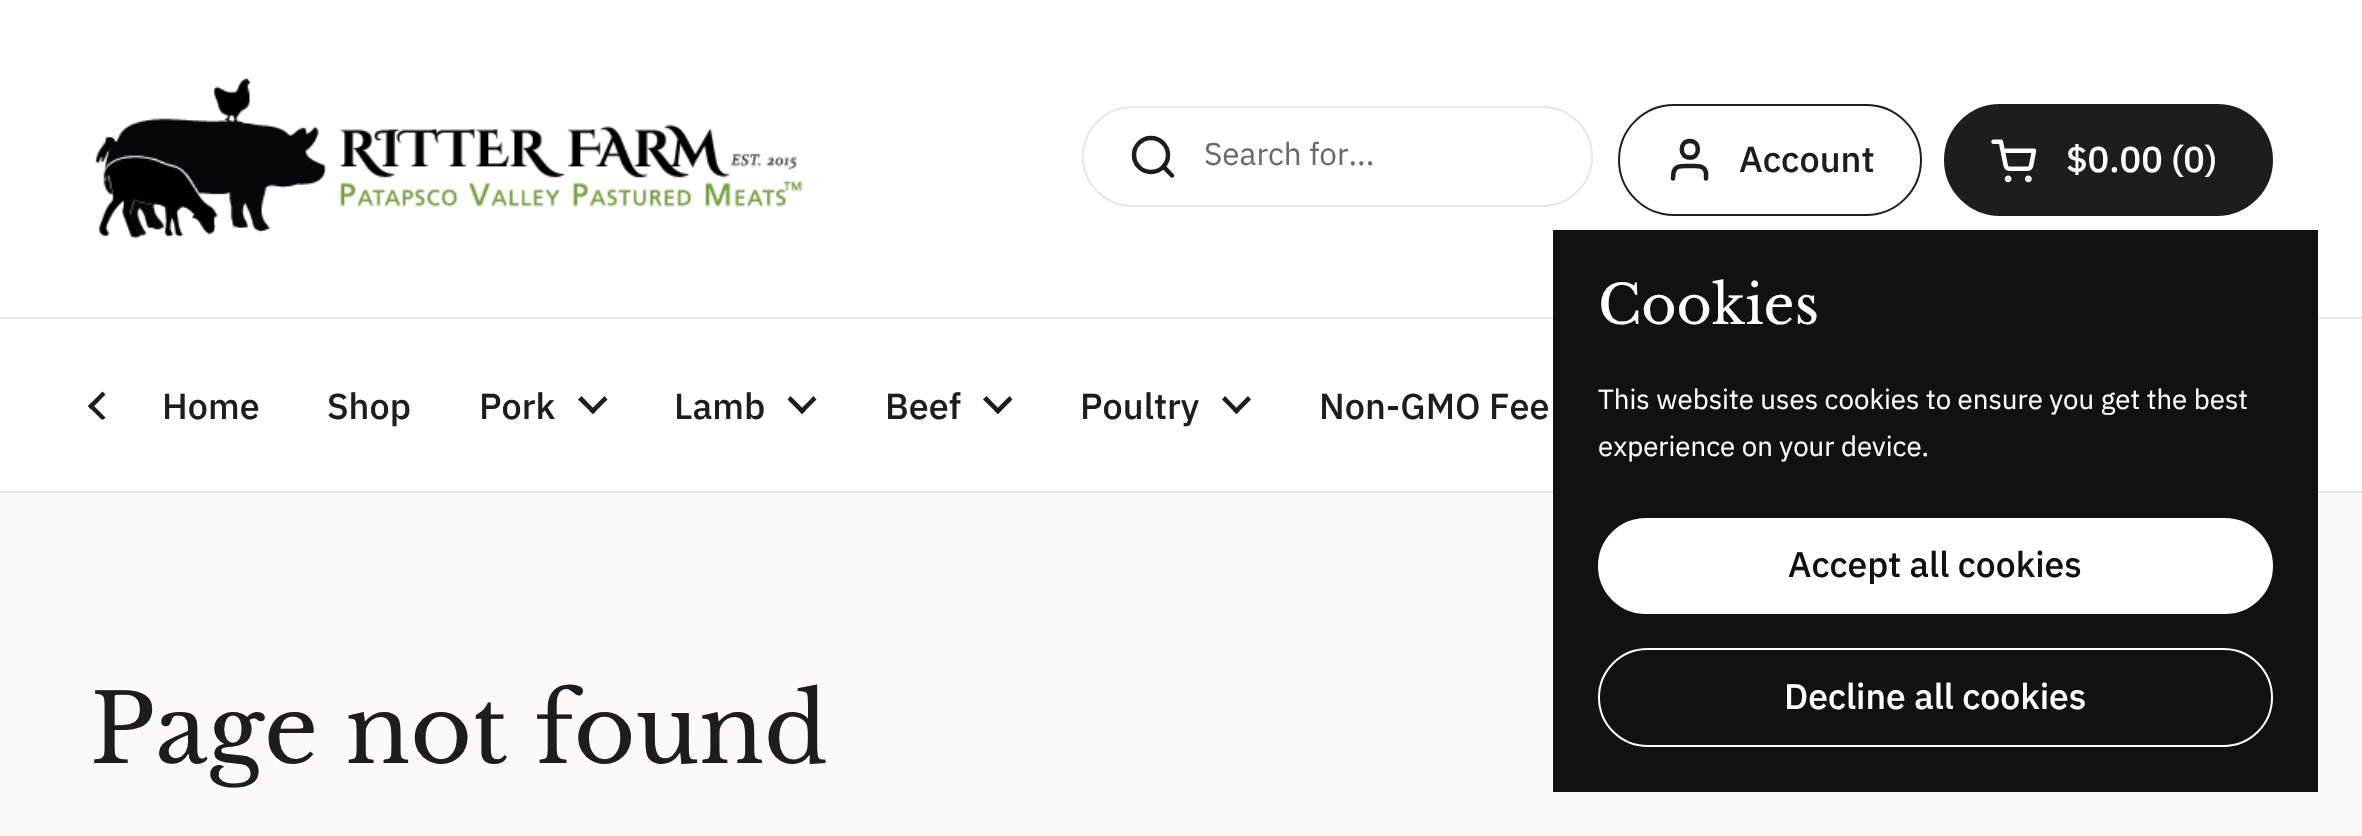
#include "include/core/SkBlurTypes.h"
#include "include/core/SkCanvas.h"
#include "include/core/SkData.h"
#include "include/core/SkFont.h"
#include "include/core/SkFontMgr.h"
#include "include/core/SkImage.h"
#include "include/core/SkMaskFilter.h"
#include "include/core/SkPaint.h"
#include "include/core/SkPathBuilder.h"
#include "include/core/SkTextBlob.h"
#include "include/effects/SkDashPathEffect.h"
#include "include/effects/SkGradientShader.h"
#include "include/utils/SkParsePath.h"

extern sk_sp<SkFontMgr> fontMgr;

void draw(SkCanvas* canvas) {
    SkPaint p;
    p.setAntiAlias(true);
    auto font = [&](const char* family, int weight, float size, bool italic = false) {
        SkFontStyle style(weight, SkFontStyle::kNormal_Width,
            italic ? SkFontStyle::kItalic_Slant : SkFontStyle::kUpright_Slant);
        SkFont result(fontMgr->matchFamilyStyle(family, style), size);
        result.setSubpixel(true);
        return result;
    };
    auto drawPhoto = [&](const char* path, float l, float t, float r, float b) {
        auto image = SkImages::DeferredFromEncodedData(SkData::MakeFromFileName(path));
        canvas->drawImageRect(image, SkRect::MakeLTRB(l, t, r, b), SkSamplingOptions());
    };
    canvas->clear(0xFFFCF9F9);
    p.setColor(0xFFFFFFFF);
    canvas->drawRect(SkRect::MakeLTRB(0, 0, 2362, 491), p);
    p.setColor(0xFFE8E8E8);
    canvas->drawRect(SkRect::MakeLTRB(0, 317, 2362, 319), p);
    drawPhoto("media/1.png", 94, 77, 803, 239);
    p.setStyle(SkPaint::kStroke_Style);
    p.setStrokeWidth(2);
    canvas->drawRoundRect(SkRect::MakeLTRB(1083, 107, 1592, 206), 49.5f, 49.5f, p);
    p.setStrokeWidth(4.5f);
    p.setColor(0xFF1D1D1D);
    canvas->drawCircle(1151, 155, 17, p);
    p.setStyle(SkPaint::kFill_Style);
    canvas->drawPath(SkPathBuilder().moveTo(1166, 166).lineTo(1164, 164.5f).lineTo(1161, 167.5f).lineTo(1162.5f, 169).close().moveTo(1170.5f, 177).cubicTo(1172.5f, 179, 1176, 176, 1173.5f, 174).close().moveTo(1162.5f, 169).lineTo(1170.5f, 177).lineTo(1173.5f, 174).lineTo(1166, 166).close().detach(), p);
    auto font1 = font("IBM Plex Sans", 400, 31.5f);
    p.setColor(0xFF6A6A6A);
    canvas->drawString("Search for...", 1204, 165, font1, p);
    p.setStyle(SkPaint::kStroke_Style);
    p.setStrokeWidth(2);
    p.setColor(0xFF1D1D1D);
    canvas->drawRoundRect(SkRect::MakeLTRB(1619, 105, 1921, 215), 55, 55, p);
    p.setStrokeWidth(4.5f);
    p.setStrokeCap(SkPaint::kRound_Cap);
    p.setStrokeJoin(SkPaint::kRound_Join);
    canvas->drawPath(SkPathBuilder().moveTo(1706, 178.5f).lineTo(1706, 172.5f).cubicTo(1704.5f, 164.5f, 1696, 166, 1689.5f, 166).cubicTo(1683.5f, 166, 1675, 164.5f, 1673.5f, 172.5f).lineTo(1673, 178.5f).moveTo(1690, 157.5f).cubicTo(1700.5f, 157.5f, 1700.5f, 141, 1690, 141).cubicTo(1679, 141, 1679, 157.5f, 1690, 157.5f).close().detach(), p);
    auto font2 = font("IBM Plex Sans", 500, 36);
    p.setStyle(SkPaint::kFill_Style);
    canvas->drawString("Account", 1739, 172, font2, p);
    canvas->drawRoundRect(SkRect::MakeLTRB(1945, 105, 2272, 215), 55, 55, p);
    p.setStyle(SkPaint::kStroke_Style);
    p.setStrokeWidth(2);
    p.setStrokeCap(SkPaint::kButt_Cap);
    p.setStrokeJoin(SkPaint::kMiter_Join);
    canvas->drawRoundRect(SkRect::MakeLTRB(1945, 105, 2272, 215), 55, 55, p);
    drawPhoto("media/2.png", 1991, 139, 2036, 183);
    p.setStyle(SkPaint::kFill_Style);
    p.setColor(0xFFFFFFFF);
    canvas->drawString("$0.00 (0)", 2066, 172, font2, p);
    p.setColor(0xFFE8E8E8);
    canvas->drawRect(SkRect::MakeLTRB(0, 491, 2362, 493), p);
    p.setColor(0xFF1D1D1D);
    canvas->drawPath(SkPathBuilder().moveTo(105.5f, 394.5f).lineTo(91, 409.5f).lineTo(88, 406).lineTo(102.5f, 391.5f).close().detach(), p);
    canvas->drawPath(SkPathBuilder().moveTo(101.5f, 419.5f).lineTo(88, 406).lineTo(91, 403).lineTo(105.5f, 417.5f).lineTo(103.5f, 419.5f).close().detach(), p);
    {
        const struct { const char* s; float x, y; } items[] = {
            {"Home", 162, 419},
            {"Shop", 327, 419},
            {"Pork", 479, 419},
        };
        for (auto [s, x, y] : items) {
            canvas->drawString(s, x, y, font2, p);
        }
    }
    canvas->drawPath(SkPathBuilder().moveTo(581.5f, 396).lineTo(596, 411).lineTo(593, 414).lineTo(578, 399.5f).close().detach(), p);
    canvas->drawPath(SkPathBuilder().moveTo(607.5f, 399.5f).lineTo(593, 414).lineTo(589.5f, 411).lineTo(604.5f, 396).close().detach(), p);
    canvas->drawString("Lamb", 674, 419, font2, p);
    canvas->drawPath(SkPathBuilder().moveTo(790.5f, 396).lineTo(805.5f, 411).lineTo(802, 414).lineTo(787.5f, 399.5f).close().detach(), p);
    canvas->drawPath(SkPathBuilder().moveTo(816.5f, 399.5f).lineTo(802, 414).lineTo(799, 411).lineTo(813.5f, 396).close().detach(), p);
    canvas->drawString("Beef", 885, 419, font2, p);
    canvas->drawPath(SkPathBuilder().moveTo(986.5f, 396).lineTo(1001, 411).lineTo(998, 414).lineTo(983, 399.5f).close().detach(), p);
    canvas->drawPath(SkPathBuilder().moveTo(1012.5f, 399.5f).lineTo(998, 414).lineTo(994.5f, 411).lineTo(1009.5f, 396).close().detach(), p);
    canvas->drawString("Poultry", 1080, 419, font2, p);
    canvas->drawPath(SkPathBuilder().moveTo(1225, 396).lineTo(1239.5f, 411).lineTo(1236.5f, 414).lineTo(1222, 399.5f).close().detach(), p);
    canvas->drawPath(SkPathBuilder().moveTo(1251, 399.5f).lineTo(1236.5f, 414).lineTo(1233, 411).lineTo(1248, 396).close().detach(), p);
    canvas->drawString("Non-GMO Fee", 1319, 419, font2, p);
    p.setColor(0xFF111111);
    canvas->drawRect(SkRect::MakeLTRB(1553, 230, 2318, 792), p);
    auto font3 = font("Libre Baskerville", 400, 54);
    p.setColor(0xFFFFFFFF);
    canvas->drawString("Cookies", 1598, 324, font3, p);
    auto font4 = font("IBM Plex Sans", 400, 27.6f);
    canvas->drawString("This website uses cookies to ensure you get the best", 1598, 409, font4, p);
    canvas->drawString("experience on your device.", 1598, 456, font4, p);
    canvas->drawRoundRect(SkRect::MakeLTRB(1599, 519, 2272, 613), 47, 47, p);
    p.setStyle(SkPaint::kStroke_Style);
    canvas->drawRoundRect(SkRect::MakeLTRB(1599, 519, 2272, 613), 47, 47, p);
    auto font5 = font("IBM Plex Sans", 500, 35.5f);
    p.setStyle(SkPaint::kFill_Style);
    p.setColor(0xFF111111);
    canvas->drawString("Accept all cookies", 1788, 577, font5, p);
    p.setStyle(SkPaint::kStroke_Style);
    p.setColor(0xFFFFFFFF);
    canvas->drawRoundRect(SkRect::MakeLTRB(1599, 649, 2272, 746), 48.5f, 48.5f, p);
    p.setStyle(SkPaint::kFill_Style);
    canvas->drawString("Decline all cookies", 1784, 709, font5, p);
    auto font6 = font("Libre Baskerville", 400, 94.5f);
    p.setColor(0xFF1D1D1D);
    canvas->drawString("Page not found", 90, 763, font6, p);
}
